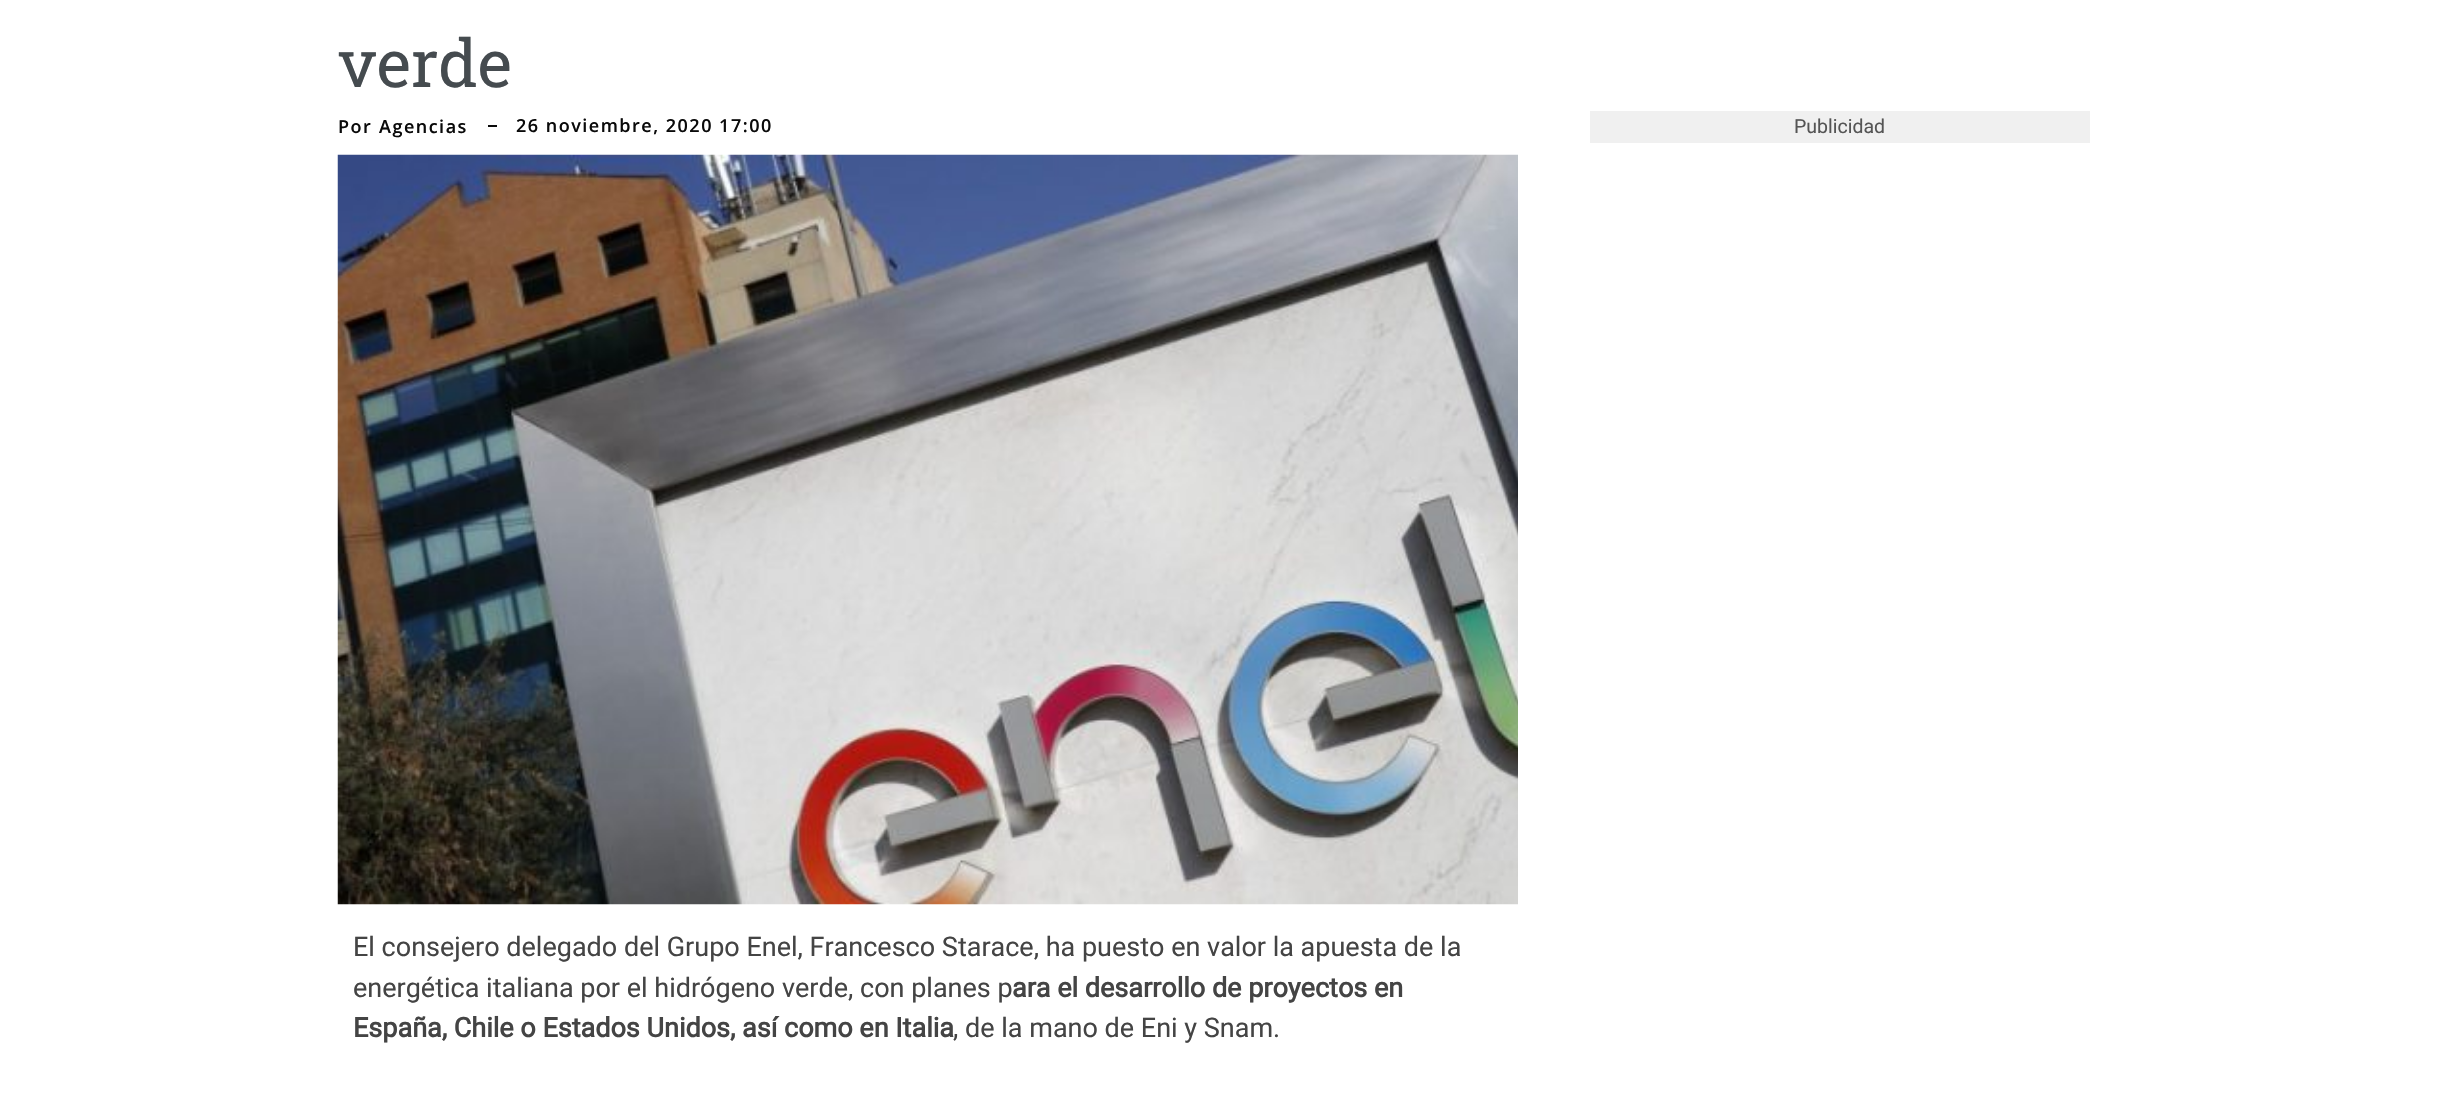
#include "include/core/SkBlurTypes.h"
#include "include/core/SkCanvas.h"
#include "include/core/SkData.h"
#include "include/core/SkFont.h"
#include "include/core/SkFontMgr.h"
#include "include/core/SkImage.h"
#include "include/core/SkMaskFilter.h"
#include "include/core/SkPaint.h"
#include "include/core/SkPathBuilder.h"
#include "include/core/SkTextBlob.h"
#include "include/effects/SkDashPathEffect.h"
#include "include/effects/SkGradientShader.h"
#include "include/utils/SkParsePath.h"

extern sk_sp<SkFontMgr> fontMgr;

void draw(SkCanvas* canvas) {
    SkPaint p;
    p.setAntiAlias(true);
    auto font = [&](const char* family, int weight, float size, bool italic = false) {
        SkFontStyle style(weight, SkFontStyle::kNormal_Width,
            italic ? SkFontStyle::kItalic_Slant : SkFontStyle::kUpright_Slant);
        SkFont result(fontMgr->matchFamilyStyle(family, style), size);
        result.setSubpixel(true);
        return result;
    };
    auto drawTracked = [&](const char* s, float x, float y, const SkFont& font, const SkPaint& ink, float letter, float word) {
        std::vector<SkGlyphID> glyphs(font.countText(s, strlen(s), SkTextEncoding::kUTF8));
        std::vector<float> xs(glyphs.size());
        font.textToGlyphs(s, strlen(s), SkTextEncoding::kUTF8, glyphs);
        font.getXPos(glyphs, xs, x);
        float extra = 0;
        for (size_t i = 0; i < glyphs.size(); i++) {
            xs[i] += extra;
            extra += letter + word * (glyphs[i] == font.unicharToGlyph(' '));
        }
        canvas->drawTextBlob(SkTextBlob::MakeFromPosHGlyphs(glyphs, xs, y, font), 0, 0, ink);
    };
    auto drawPhoto = [&](const char* path, float l, float t, float r, float b) {
        auto image = SkImages::DeferredFromEncodedData(SkData::MakeFromFileName(path));
        canvas->drawImageRect(image, SkRect::MakeLTRB(l, t, r, b), SkSamplingOptions());
    };
    canvas->clear(0xFFFFFFFF);
    auto font1 = font("Roboto Slab", 400, 66);
    p.setColor(0xFF454B4F);
    canvas->drawString("verde", 338, 87, font1, p);
    auto font2 = font("Open Sans", 600, 18);
    p.setColor(0xFF0A0A0A);
    drawTracked("Por", 338, 133, font2, p, 1.5f, 0);
    drawTracked("Agencias", 379, 133, font2, p, 1.5f, 0);
    canvas->drawRect(SkRect::MakeLTRB(488, 125, 497, 127), p);
    drawTracked("26 noviembre, 2020 17:00", 516, 132, font2, p, 1.5f, 0);
    drawPhoto("media/1.png", 337, 154, 1518, 905);
    auto font3 = font("Roboto", 400, 27);
    p.setColor(0xFF444444);
    canvas->drawString("El consejero delegado del Grupo Enel, Francesco Starace, ha puesto en valor la apuesta de la", 353, 956, font3, p);
    canvas->drawString("energética italiana por el hidrógeno verde, con planes p", 353, 997, font3, p);
    auto font4 = font("Roboto", 700, 27);
    canvas->drawString("ara el desarrollo de proyectos en", 1012, 997, font4, p);
    canvas->drawString("España, Chile o Estados Unidos, así como en Italia", 353, 1037, font4, p);
    canvas->drawString(", de la mano de Eni y Snam.", 953, 1037, font3, p);
    p.setColor(0xFFF0F0F0);
    canvas->drawRect(SkRect::MakeLTRB(1590, 111, 2090, 143), p);
    auto font5 = font("Roboto", 400, 19.5f);
    p.setColor(0xFF555555);
    canvas->drawString("Publicidad", 1794, 133, font5, p);
}
